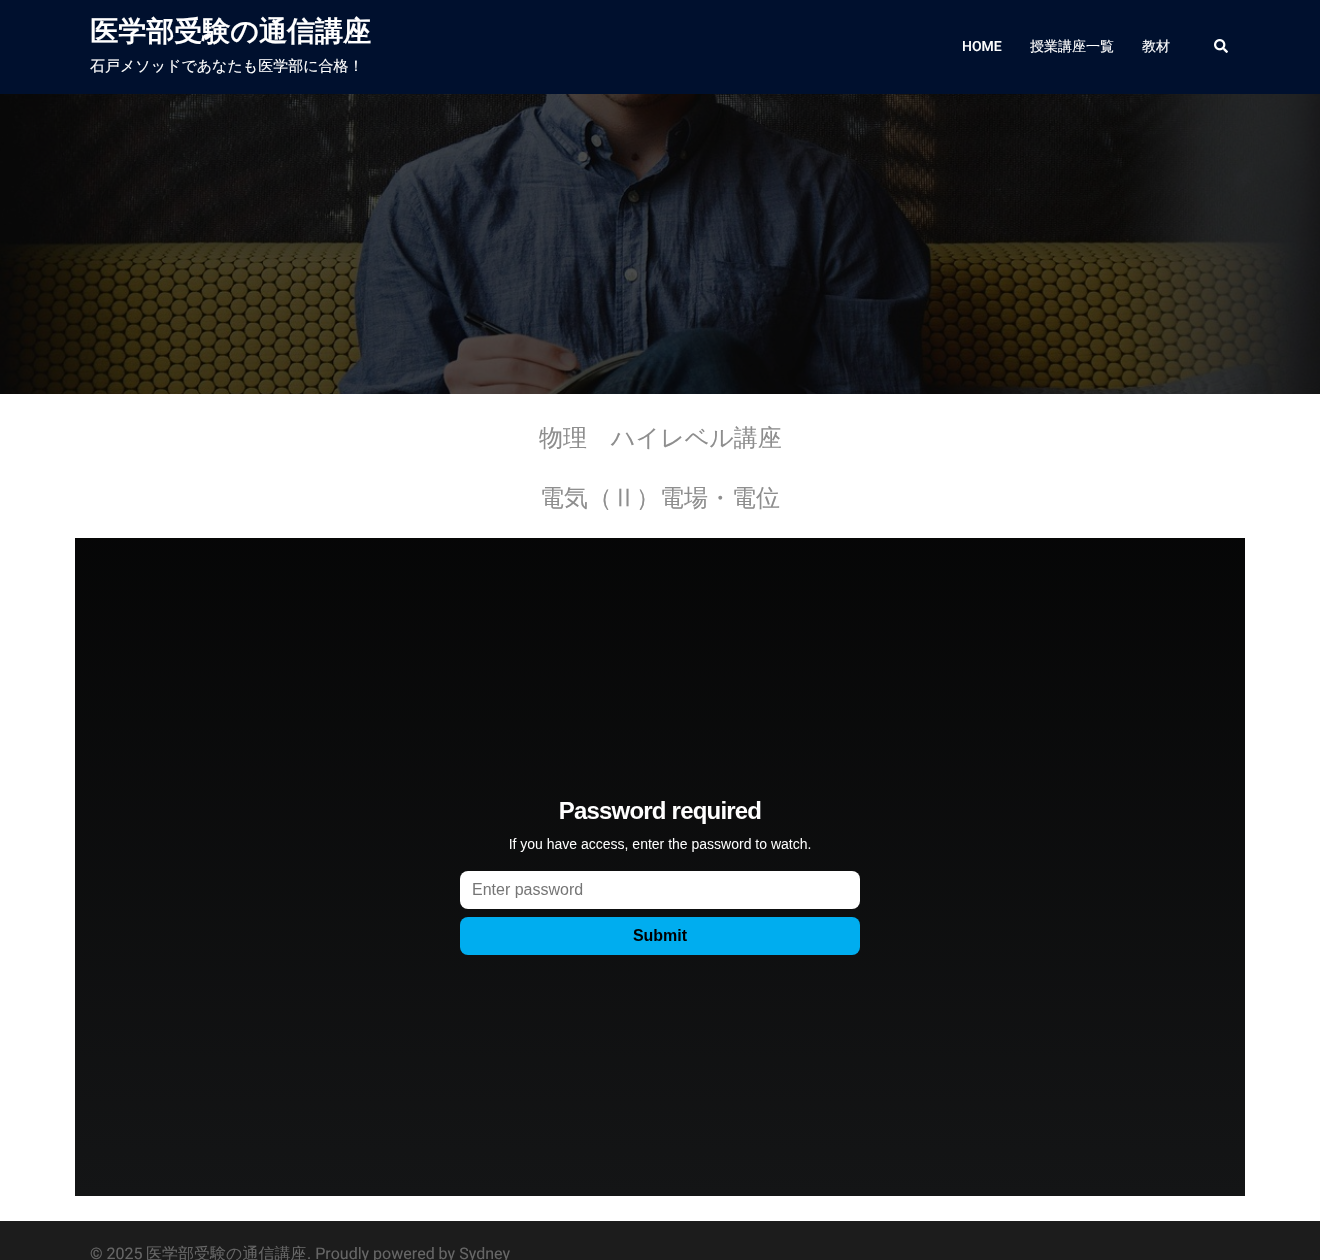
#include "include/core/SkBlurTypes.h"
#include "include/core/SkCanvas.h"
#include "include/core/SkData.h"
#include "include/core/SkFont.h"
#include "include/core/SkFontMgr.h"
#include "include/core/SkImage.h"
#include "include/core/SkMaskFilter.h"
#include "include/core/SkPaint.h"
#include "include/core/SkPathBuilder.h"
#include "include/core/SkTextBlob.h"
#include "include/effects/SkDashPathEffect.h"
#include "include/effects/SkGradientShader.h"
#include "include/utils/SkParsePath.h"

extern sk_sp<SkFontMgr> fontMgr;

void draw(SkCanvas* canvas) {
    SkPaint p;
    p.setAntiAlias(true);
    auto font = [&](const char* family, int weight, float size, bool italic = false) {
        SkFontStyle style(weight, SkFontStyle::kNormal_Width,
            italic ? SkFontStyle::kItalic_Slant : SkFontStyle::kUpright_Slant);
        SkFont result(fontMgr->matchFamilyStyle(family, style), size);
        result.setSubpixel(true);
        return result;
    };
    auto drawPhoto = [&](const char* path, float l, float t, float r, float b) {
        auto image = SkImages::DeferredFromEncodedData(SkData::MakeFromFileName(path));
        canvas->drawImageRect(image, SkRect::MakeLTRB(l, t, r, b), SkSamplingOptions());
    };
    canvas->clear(0xFFFFFFFF);
    p.setColor(0xFF00102E);
    canvas->drawRect(SkRect::MakeLTRB(0, 0, 1320, 94), p);
    auto font1 = font("WenQuanYi Zen Hei", 700, 28);
    p.setColor(0xFFFFFFFF);
    canvas->drawString("医学部受験の通信講座", 90, 41, font1, p);
    auto font2 = font("WenQuanYi Zen Hei", 500, 15);
    canvas->drawString("石戸メソッドであなたも医学部に合格！", 90, 71, font2, p);
    auto font3 = font("Roboto", 500, 14);
    canvas->drawString("HOME", 962, 51, font3, p);
    auto font4 = font("WenQuanYi Zen Hei", 500, 14);
    canvas->drawString("授業講座一覧", 1030, 51, font4, p);
    canvas->drawString("教材", 1142, 51, font4, p);
    drawPhoto("media/1.png", 1214, 39, 1228, 53);
    drawPhoto("media/2.png", 0, 94, 1320, 394);
    auto font5 = font("WenQuanYi Zen Hei", 500, 24);
    p.setColor(0xFF8E8E8E);
    canvas->drawString("物理　ハイレベル講座", 539, 446, font5, p);
    canvas->drawString("電気（Ⅱ）電場・電位", 540, 506, font5, p);
    drawPhoto("media/3.png", 75, 538, 1245, 1196);
    p.setColor(0xFF1C1C1C);
    canvas->drawRect(SkRect::MakeLTRB(0, 1221, 1320, 1260), p);
    auto font6 = font("Roboto", 400, 16);
    p.setColor(0xFF666666);
    canvas->drawString("© 2025", 90, 1259, font6, p);
    auto font7 = font("WenQuanYi Zen Hei", 500, 16);
    canvas->drawString("医学部受験の通信講座", 146, 1259, font7, p);
    canvas->drawString(". Proudly powered by Sydney", 307, 1259, font6, p);
}
